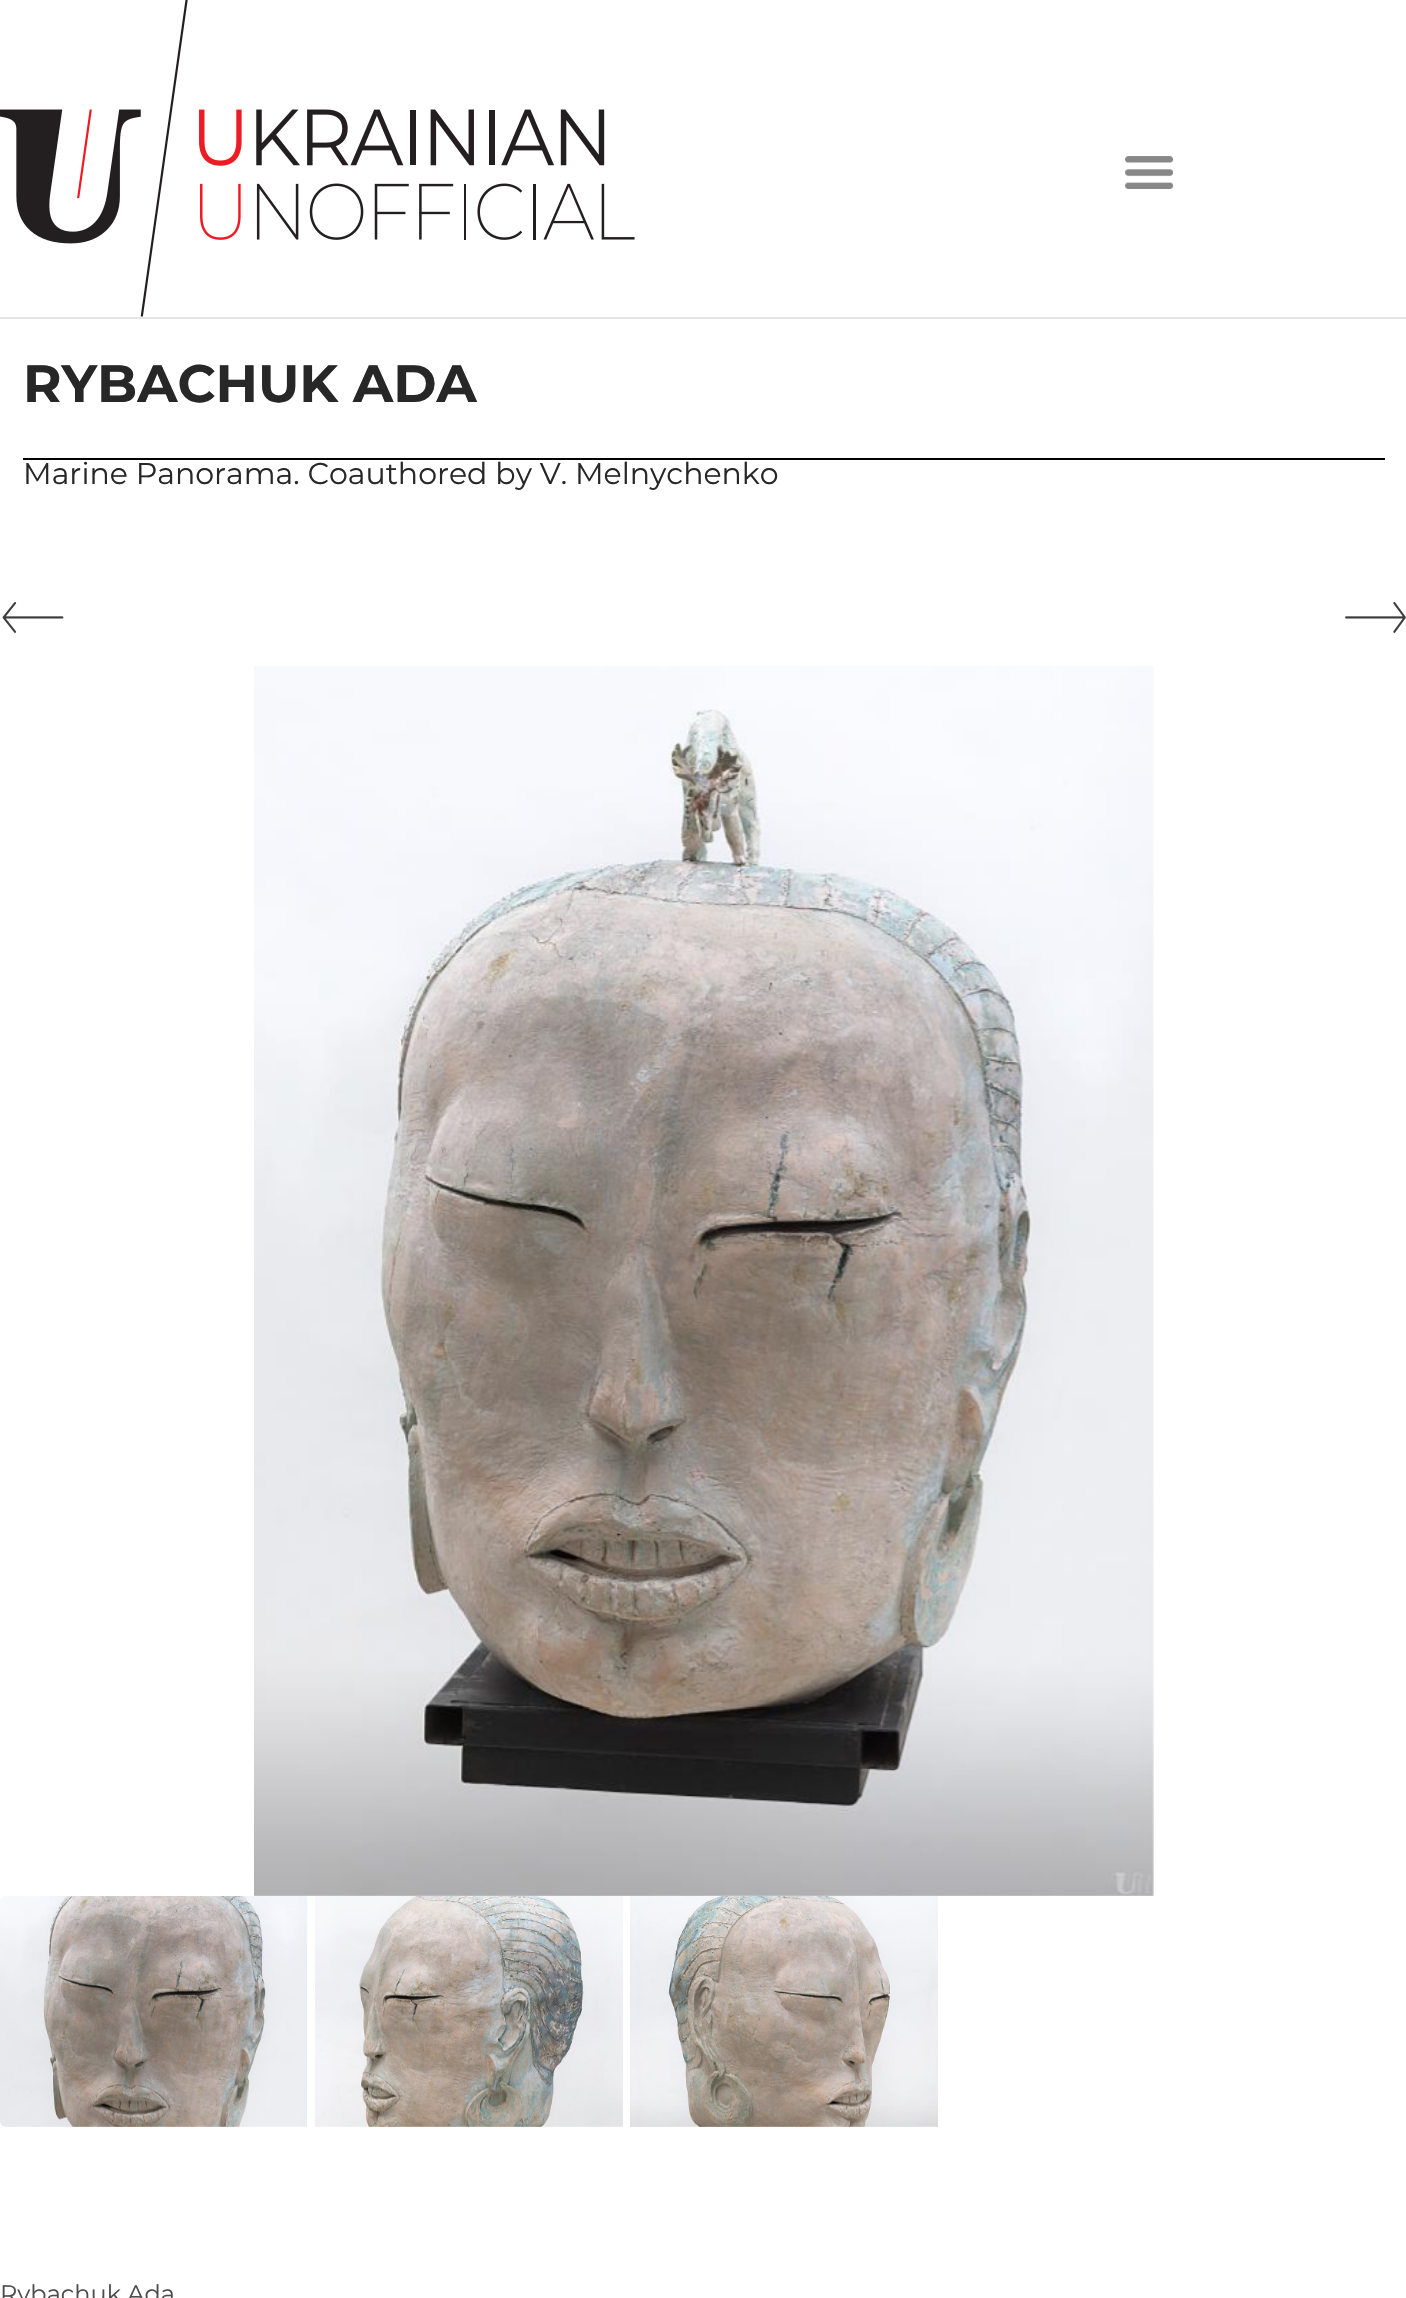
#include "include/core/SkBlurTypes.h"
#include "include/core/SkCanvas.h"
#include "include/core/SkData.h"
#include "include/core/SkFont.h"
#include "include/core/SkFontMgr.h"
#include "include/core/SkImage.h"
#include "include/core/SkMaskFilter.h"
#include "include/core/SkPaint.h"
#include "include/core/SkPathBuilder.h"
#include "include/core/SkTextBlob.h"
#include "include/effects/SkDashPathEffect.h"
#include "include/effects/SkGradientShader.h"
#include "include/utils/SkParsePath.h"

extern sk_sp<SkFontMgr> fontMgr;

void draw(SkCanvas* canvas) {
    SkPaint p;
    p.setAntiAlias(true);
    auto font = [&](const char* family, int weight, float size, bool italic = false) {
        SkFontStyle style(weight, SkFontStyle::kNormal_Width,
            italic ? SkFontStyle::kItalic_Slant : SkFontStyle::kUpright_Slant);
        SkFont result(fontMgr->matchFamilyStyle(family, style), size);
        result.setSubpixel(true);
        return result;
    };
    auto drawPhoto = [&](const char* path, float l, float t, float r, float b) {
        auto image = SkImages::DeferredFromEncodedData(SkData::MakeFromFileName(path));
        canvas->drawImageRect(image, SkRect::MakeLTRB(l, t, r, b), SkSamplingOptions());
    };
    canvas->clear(0xFFFFFFFF);
    p.setColor(0xFFE4E4E4);
    canvas->drawRect(SkRect::MakeLTRB(0, 317, 1406, 319), p);
    drawPhoto("media/1.png", 0, 0, 635, 317);
    drawPhoto("media/2.png", 1125, 156, 1173, 189);
    auto font1 = font("Montserrat", 700, 52.5f);
    p.setColor(0xFF272727);
    canvas->drawString("RYBACHUK ADA", 23, 402, font1, p);
    p.setColor(0xFF000000);
    canvas->drawRect(SkRect::MakeLTRB(23, 458, 1385, 460), p);
    auto font2 = font("Montserrat", 400, 30);
    p.setColor(0xFF272727);
    canvas->drawString("Marine Panorama. Сoauthored by V. Melnychenko", 23, 484, font2, p);
    drawPhoto("media/3.png", 2, 602, 64, 633);
    drawPhoto("media/4.png", 1345, 602, 1406, 633);
    drawPhoto("media/5.png", 254, 666, 1154, 1896);
    drawPhoto("media/6.png", 0, 1896, 307, 2127);
    drawPhoto("media/7.png", 315, 1896, 623, 2127);
    drawPhoto("media/8.png", 630, 1896, 938, 2127);
    auto font3 = font("Montserrat", 400, 24);
    p.setColor(0xFF4C4C4C);
    canvas->drawString("Rybachuk Ada", 0, 2302, font3, p);
}
